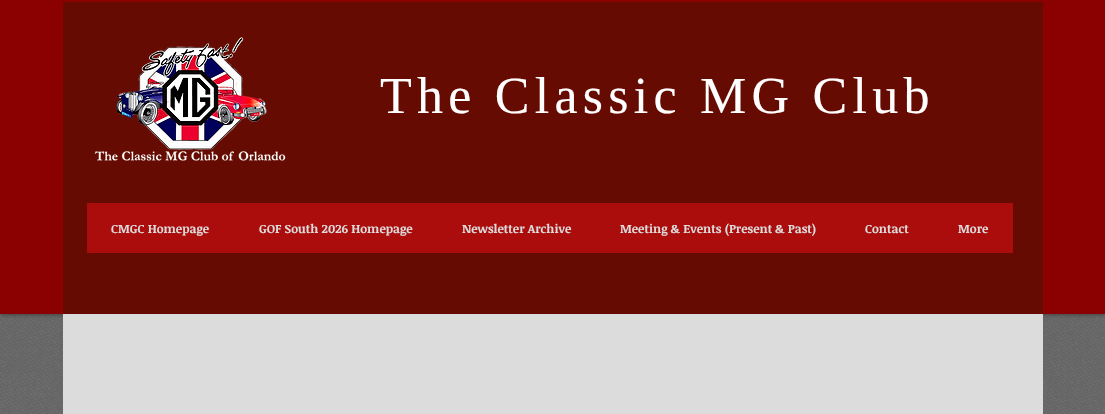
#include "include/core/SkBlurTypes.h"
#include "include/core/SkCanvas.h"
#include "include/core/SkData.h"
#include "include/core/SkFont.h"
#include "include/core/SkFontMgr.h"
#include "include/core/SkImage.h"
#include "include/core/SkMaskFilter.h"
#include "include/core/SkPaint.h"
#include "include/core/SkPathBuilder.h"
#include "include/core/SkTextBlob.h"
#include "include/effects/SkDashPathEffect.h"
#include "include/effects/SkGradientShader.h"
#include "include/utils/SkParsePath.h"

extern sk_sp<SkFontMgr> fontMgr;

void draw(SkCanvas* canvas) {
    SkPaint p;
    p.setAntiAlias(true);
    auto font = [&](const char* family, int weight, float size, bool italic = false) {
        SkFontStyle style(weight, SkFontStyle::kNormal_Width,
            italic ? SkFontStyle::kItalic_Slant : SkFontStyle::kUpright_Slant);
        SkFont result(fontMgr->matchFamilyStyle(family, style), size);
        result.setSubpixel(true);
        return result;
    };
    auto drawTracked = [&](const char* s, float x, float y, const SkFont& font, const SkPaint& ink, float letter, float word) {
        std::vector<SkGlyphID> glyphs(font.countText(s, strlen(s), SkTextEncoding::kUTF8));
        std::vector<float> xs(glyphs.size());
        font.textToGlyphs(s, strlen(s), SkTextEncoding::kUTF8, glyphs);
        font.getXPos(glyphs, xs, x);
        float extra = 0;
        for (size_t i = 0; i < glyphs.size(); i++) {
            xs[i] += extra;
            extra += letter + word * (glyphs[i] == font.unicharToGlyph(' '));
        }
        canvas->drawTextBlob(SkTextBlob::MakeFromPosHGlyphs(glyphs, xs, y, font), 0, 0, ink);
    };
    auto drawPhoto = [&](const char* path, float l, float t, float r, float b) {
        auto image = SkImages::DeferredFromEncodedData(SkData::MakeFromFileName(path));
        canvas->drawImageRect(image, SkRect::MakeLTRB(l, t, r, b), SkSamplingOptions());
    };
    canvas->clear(0xFF666565);
    drawPhoto("media/2.png", 0, 314, 1105, 414);
    p.setColor(0x80000000);
    p.setMaskFilter(SkMaskFilter::MakeBlur(kNormal_SkBlurStyle, 2.5f));
    canvas->drawRect(SkRect::MakeLTRB(0, 0, 1105, 314), p);
    p.setMaskFilter(nullptr);
    p.setColor(0xFF8B0000);
    canvas->drawRect(SkRect::MakeLTRB(0, 0, 1105, 314), p);
    p.setColor(0xFF660B02);
    canvas->drawRect(SkRect::MakeLTRB(63, 2, 1043, 314), p);
    drawPhoto("media/1.png", 94, 37, 286, 162);
    auto font1 = font("Liberation Serif", 400, 52);
    p.setColor(0xFFFFFFFF);
    drawTracked("The Classic MG Club", 380, 113, font1, p, 5.25f, 0);
    p.setColor(0xFFAB0D0D);
    canvas->drawRect(SkRect::MakeLTRB(87, 203, 1013, 253), p);
    auto font2 = font("Noticia Text", 700, 12);
    p.setColor(0xFFDDDCDC);
    {
        const struct { const char* s; float x, y; } items[] = {
            {"CMGC Homepage", 111, 233},
            {"GOF South 2026 Homepage", 259, 233},
            {"Newsletter Archive", 462, 233},
            {"Meeting & Events (Present & Past)", 620, 233},
            {"Contact", 865, 233},
            {"More", 958, 233},
        };
        for (auto [s, x, y] : items) {
            canvas->drawString(s, x, y, font2, p);
        }
    }
    canvas->drawRect(SkRect::MakeLTRB(63, 314, 1043, 414), p);
}
